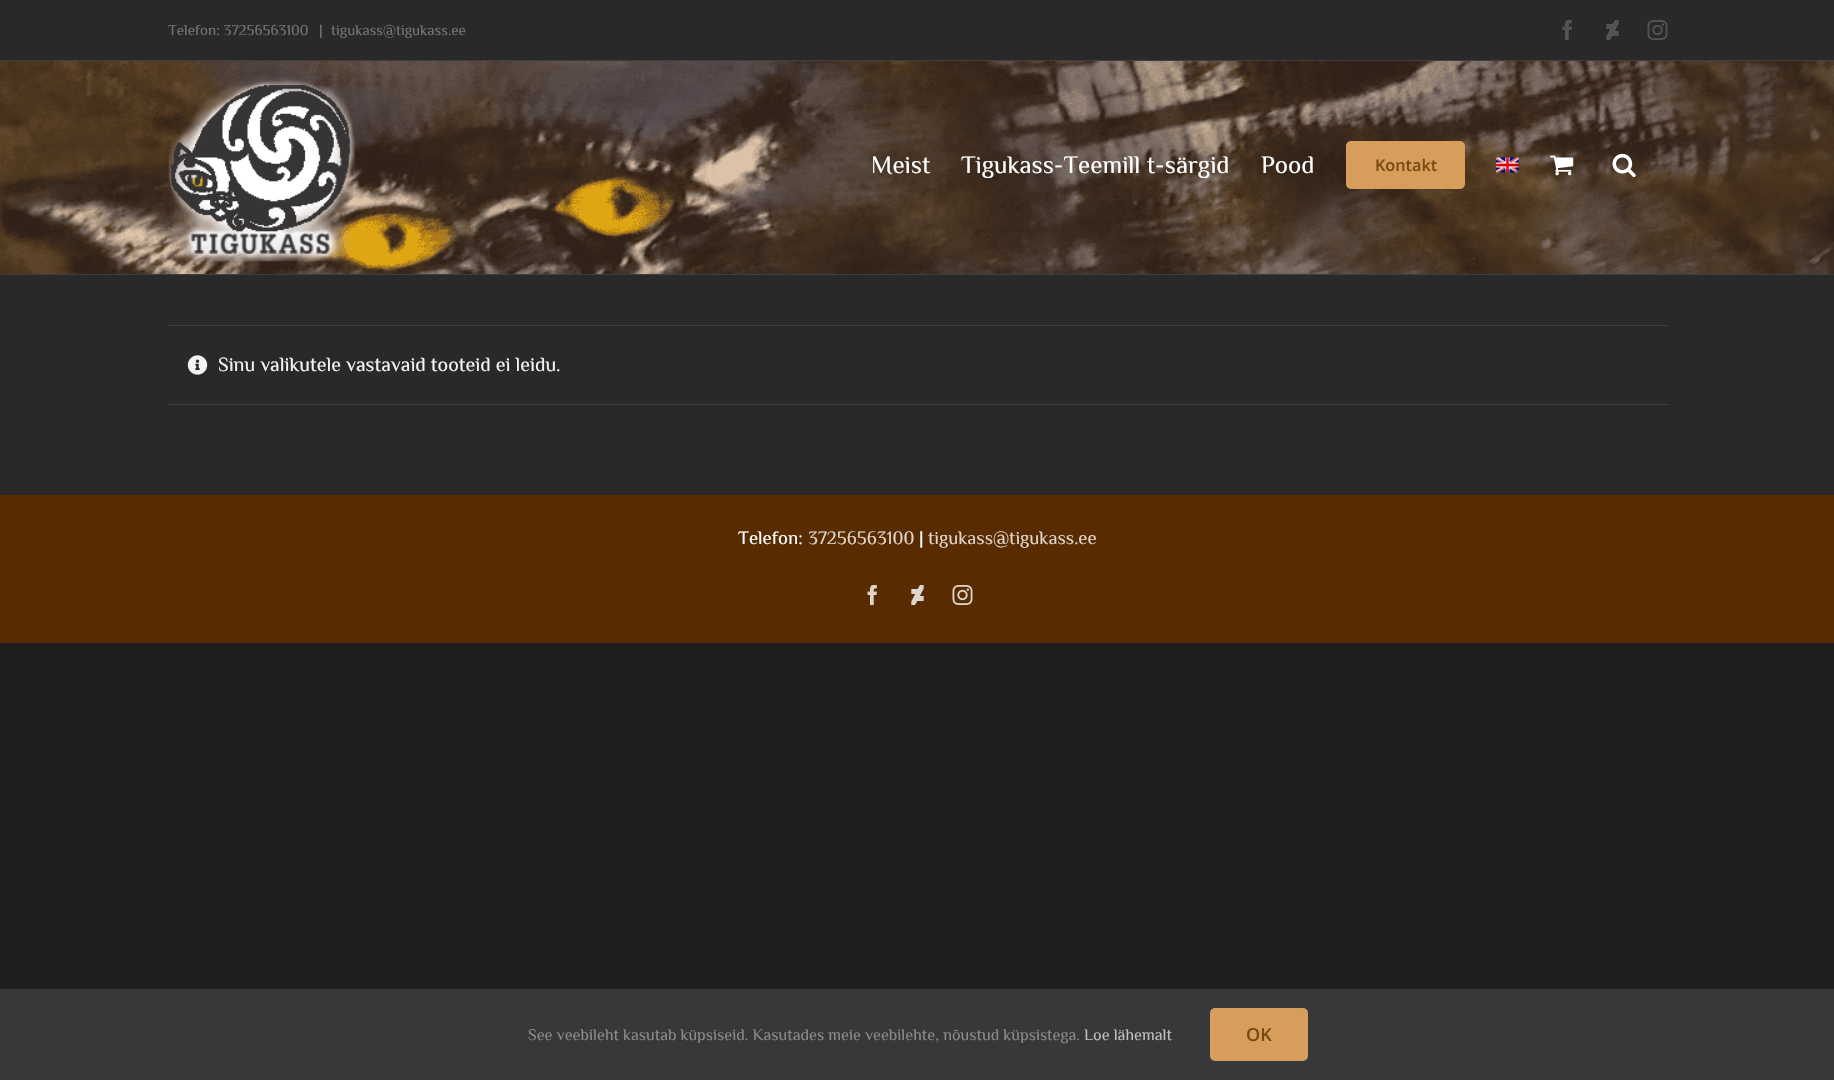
#include "include/core/SkBlurTypes.h"
#include "include/core/SkCanvas.h"
#include "include/core/SkData.h"
#include "include/core/SkFont.h"
#include "include/core/SkFontMgr.h"
#include "include/core/SkImage.h"
#include "include/core/SkMaskFilter.h"
#include "include/core/SkPaint.h"
#include "include/core/SkPathBuilder.h"
#include "include/core/SkTextBlob.h"
#include "include/effects/SkDashPathEffect.h"
#include "include/effects/SkGradientShader.h"
#include "include/utils/SkParsePath.h"

extern sk_sp<SkFontMgr> fontMgr;

void draw(SkCanvas* canvas) {
    SkPaint p;
    p.setAntiAlias(true);
    auto font = [&](const char* family, int weight, float size, bool italic = false) {
        SkFontStyle style(weight, SkFontStyle::kNormal_Width,
            italic ? SkFontStyle::kItalic_Slant : SkFontStyle::kUpright_Slant);
        SkFont result(fontMgr->matchFamilyStyle(family, style), size);
        result.setSubpixel(true);
        return result;
    };
    auto drawPhoto = [&](const char* path, float l, float t, float r, float b) {
        auto image = SkImages::DeferredFromEncodedData(SkData::MakeFromFileName(path));
        canvas->drawImageRect(image, SkRect::MakeLTRB(l, t, r, b), SkSamplingOptions());
    };
    canvas->clear(0xFF1E1E1E);
    p.setColor(0xFF29292A);
    canvas->drawRect(SkRect::MakeLTRB(0, 0, 1834, 495), p);
    p.setColor(0xFF3E3E3E);
    canvas->drawRect(SkRect::MakeLTRB(0, 60, 1834, 61), p);
    auto font1 = font("Philosopher", 400, 15);
    p.setColor(0xFF747474);
    {
        const struct { const char* s; float x, y; } items[] = {
            {"Telefon: 37256563100", 168, 35},
            {"|", 319, 35},
            {"tigukass@tigukass.ee", 331, 35},
        };
        for (auto [s, x, y] : items) {
            canvas->drawString(s, x, y, font1, p);
        }
    }
    drawPhoto("media/1.png", 1562, 20, 1572, 40);
    drawPhoto("media/2.png", 1606, 20, 1619, 40);
    drawPhoto("media/3.png", 1647, 20, 1668, 40);
    drawPhoto("media/4.png", 0, 61, 1834, 274);
    p.setColor(0xFF3E3E3E);
    canvas->drawRect(SkRect::MakeLTRB(0, 274, 1834, 275), p);
    drawPhoto("media/5.png", 168, 76, 355, 262);
    auto font2 = font("Philosopher", 400, 25);
    p.setColor(0xFFFFFFFF);
    {
        const struct { const char* s; float x, y; } items[] = {
            {"Meist", 871, 173},
            {"Tigukass-Teemill t-särgid", 961, 173},
            {"Pood", 1261, 173},
        };
        for (auto [s, x, y] : items) {
            canvas->drawString(s, x, y, font2, p);
        }
    }
    p.setColor(0xFFD69E5A);
    canvas->drawRoundRect(SkRect::MakeLTRB(1346, 141, 1465, 189), 5, 5, p);
    auto font3 = font("Open Sans", 600, 16.25f);
    p.setColor(0xFF784910);
    canvas->drawString("Kontakt", 1375, 171, font3, p);
    drawPhoto("media/6.png", 1496, 157, 1519, 173);
    drawPhoto("media/7.png", 1550, 155, 1574, 176);
    drawPhoto("media/8.png", 1612, 153, 1636, 178);
    p.setColor(0xFF3E3E3E);
    canvas->drawRect(SkRect::MakeLTRB(168, 325, 1668, 326), p);
    canvas->drawRect(SkRect::MakeLTRB(168, 404, 1668, 405), p);
    drawPhoto("media/9.png", 187, 355, 208, 375);
    auto font4 = font("Philosopher", 400, 20);
    p.setColor(0xFFF4F3F2);
    canvas->drawString("Sinu valikutele vastavaid tooteid ei leidu.", 218, 371, font4, p);
    p.setColor(0xFF592B00);
    canvas->drawRect(SkRect::MakeLTRB(0, 495, 1834, 643), p);
    auto font5 = font("Philosopher", 400, 18.75f);
    p.setColor(0xFFFFFFFF);
    canvas->drawString("Telefon:", 738, 544, font5, p);
    p.setColor(0xFFDED5CC);
    canvas->drawString("37256563100", 808, 544, font5, p);
    p.setColor(0xFFFFFFFF);
    canvas->drawString("|", 919, 544, font5, p);
    p.setColor(0xFFDED5CC);
    canvas->drawString("tigukass@tigukass.ee", 928, 544, font5, p);
    drawPhoto("media/10.png", 867, 585, 877, 605);
    drawPhoto("media/11.png", 911, 585, 924, 605);
    drawPhoto("media/12.png", 952, 585, 973, 605);
    p.setColor(0xFF363839);
    canvas->drawRect(SkRect::MakeLTRB(0, 989, 1834, 1080), p);
    auto font6 = font("Philosopher", 400, 16.25f);
    p.setColor(0xFF8C8989);
    canvas->drawString("See veebileht kasutab küpsiseid. Kasutades meie veebilehte, nõustud küpsistega.", 528, 1040, font6, p);
    p.setColor(0xFFBFBFBF);
    canvas->drawString("Loe lähemalt", 1084, 1040, font6, p);
    p.setColor(0xFFD69E5A);
    canvas->drawRoundRect(SkRect::MakeLTRB(1210, 1008, 1308, 1061), 5, 5, p);
    auto font7 = font("Open Sans", 600, 18);
    p.setColor(0xFF784910);
    canvas->drawString("OK", 1246, 1041, font7, p);
}
